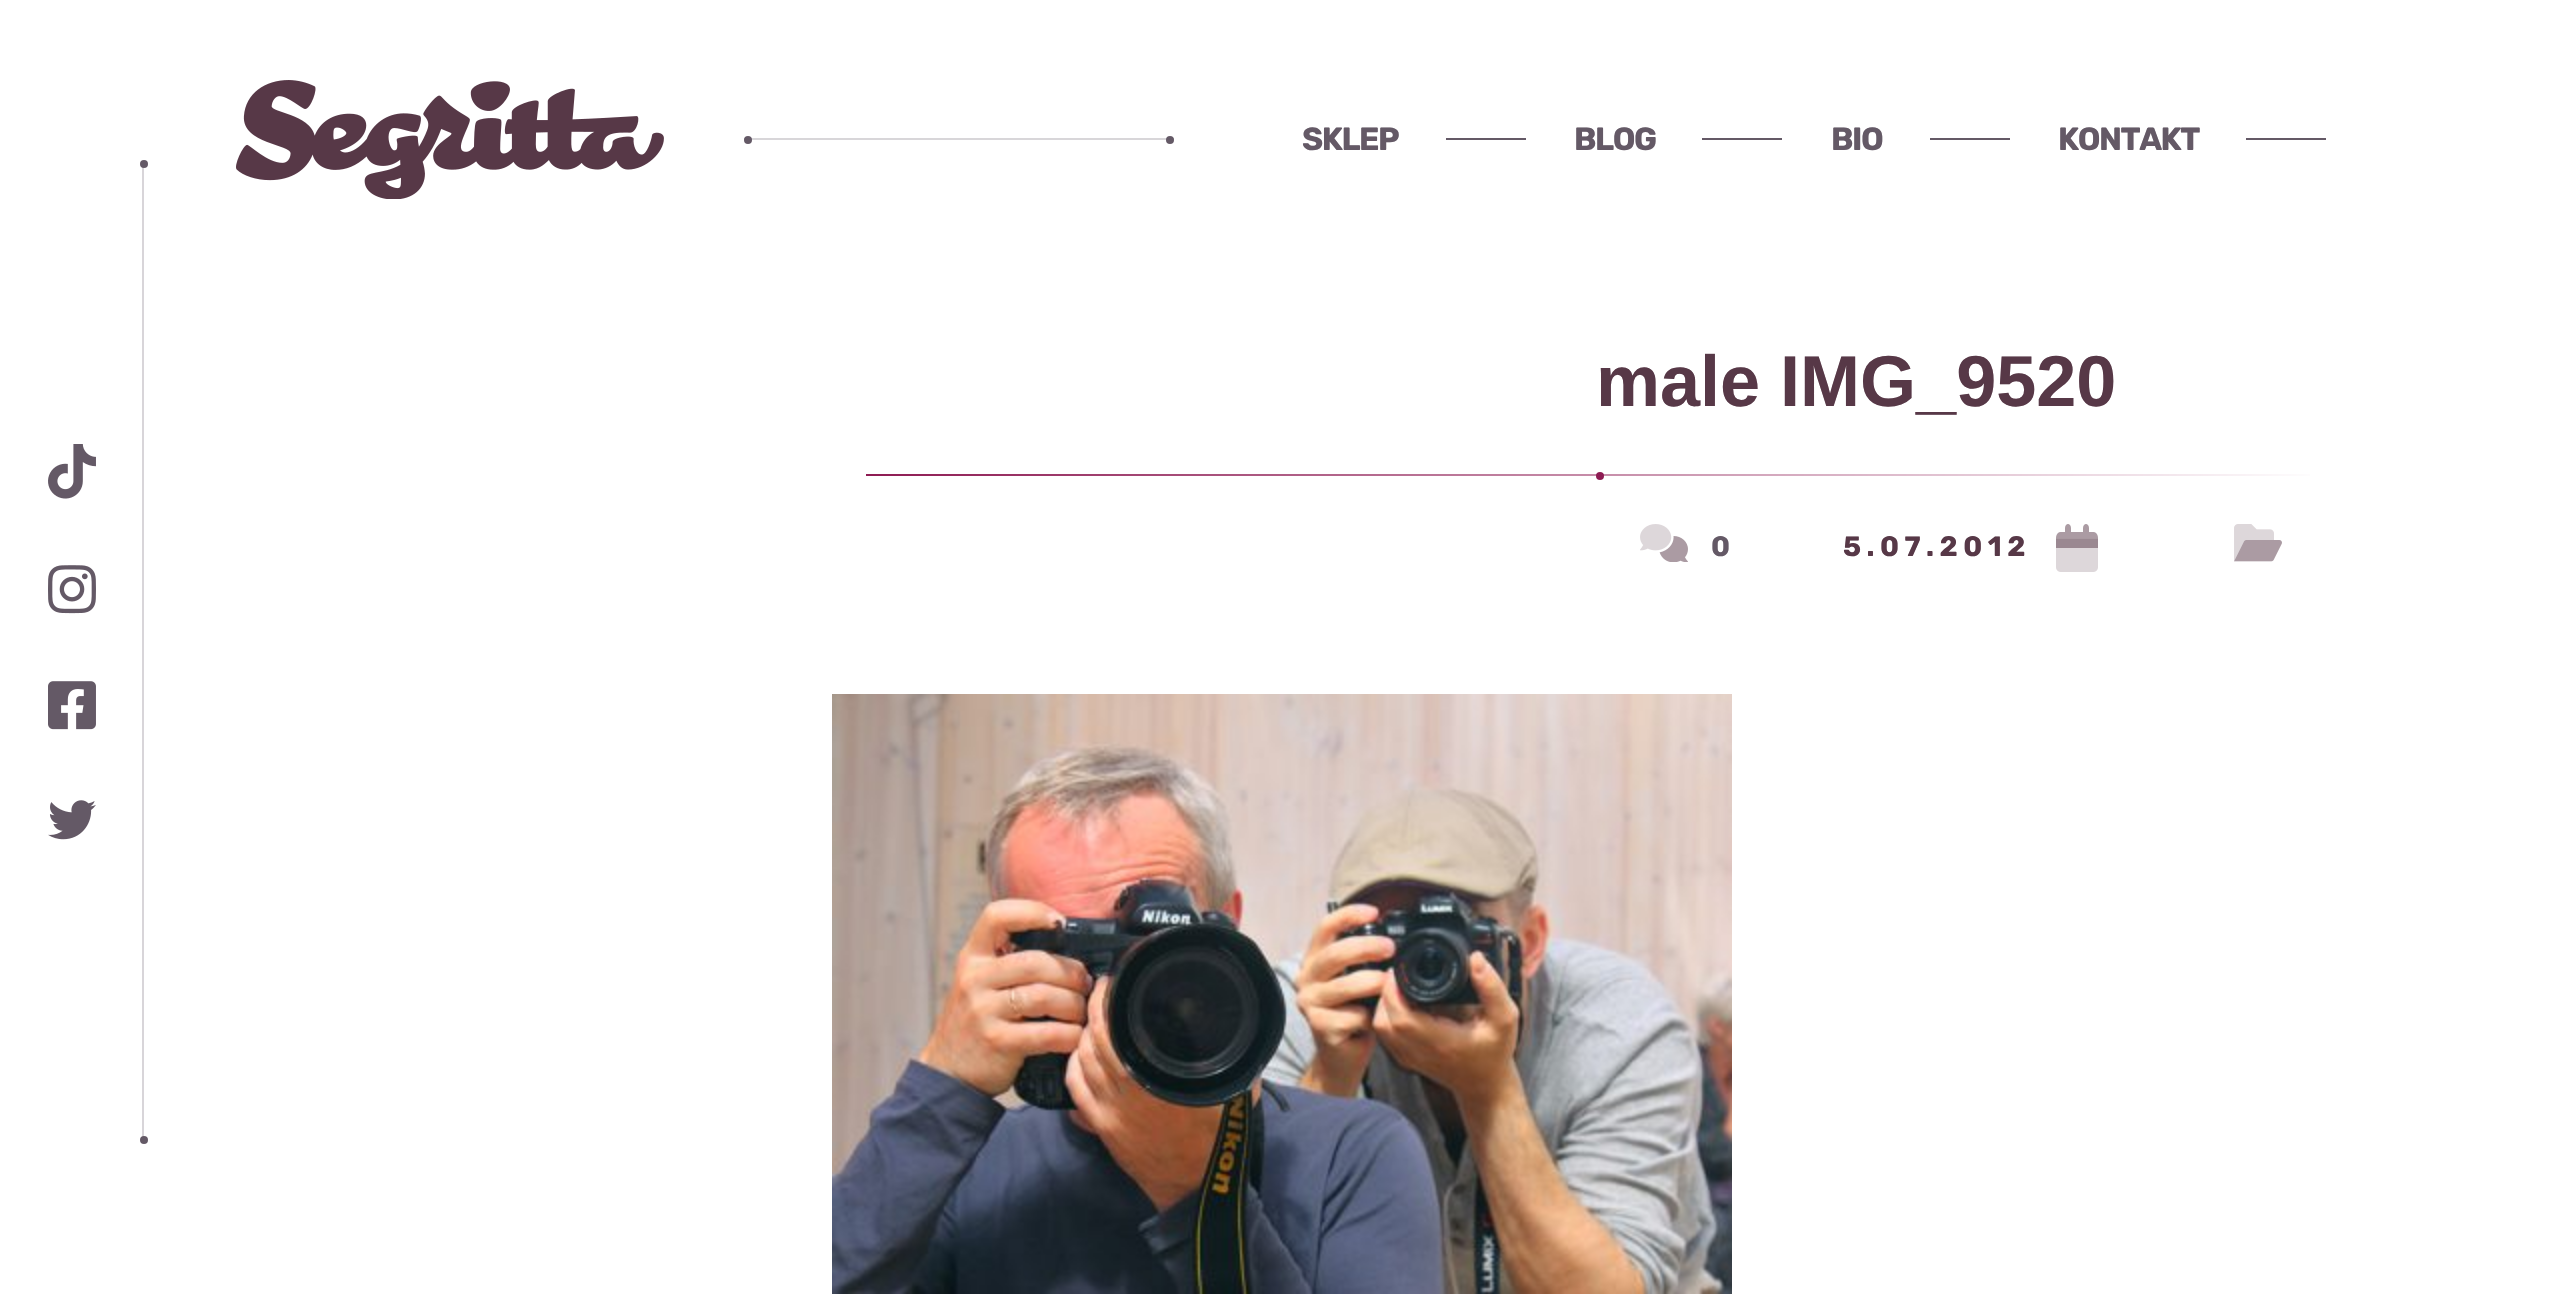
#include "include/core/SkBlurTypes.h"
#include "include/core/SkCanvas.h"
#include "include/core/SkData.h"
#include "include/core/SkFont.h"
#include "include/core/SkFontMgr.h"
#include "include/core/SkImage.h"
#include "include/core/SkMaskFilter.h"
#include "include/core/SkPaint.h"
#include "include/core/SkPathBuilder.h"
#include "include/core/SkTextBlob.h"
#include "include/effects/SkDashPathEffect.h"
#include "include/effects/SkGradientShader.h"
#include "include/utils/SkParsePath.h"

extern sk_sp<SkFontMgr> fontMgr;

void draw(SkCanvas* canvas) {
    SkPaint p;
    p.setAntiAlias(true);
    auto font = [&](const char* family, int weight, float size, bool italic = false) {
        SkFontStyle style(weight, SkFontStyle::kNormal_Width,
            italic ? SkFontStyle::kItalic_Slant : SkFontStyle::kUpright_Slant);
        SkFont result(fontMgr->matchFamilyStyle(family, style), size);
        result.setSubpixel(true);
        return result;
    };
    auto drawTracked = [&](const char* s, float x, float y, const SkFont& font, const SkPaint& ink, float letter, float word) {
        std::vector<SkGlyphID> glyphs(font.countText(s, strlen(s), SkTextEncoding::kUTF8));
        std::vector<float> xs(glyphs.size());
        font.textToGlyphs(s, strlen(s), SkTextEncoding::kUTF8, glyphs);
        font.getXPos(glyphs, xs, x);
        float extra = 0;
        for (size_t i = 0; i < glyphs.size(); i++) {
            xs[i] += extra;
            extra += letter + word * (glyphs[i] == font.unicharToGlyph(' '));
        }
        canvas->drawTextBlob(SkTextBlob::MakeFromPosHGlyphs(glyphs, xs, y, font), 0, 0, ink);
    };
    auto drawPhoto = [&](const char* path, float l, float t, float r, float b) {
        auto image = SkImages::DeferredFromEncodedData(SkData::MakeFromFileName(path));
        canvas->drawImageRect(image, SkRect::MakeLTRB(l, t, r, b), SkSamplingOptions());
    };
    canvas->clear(0xFFFFFFFF);
    drawPhoto("media/1.png", 236, 80, 664, 199);
    p.setColor(0xFFD8D6D9);
    canvas->drawRect(SkRect::MakeLTRB(744, 138, 1174, 140), p);
    p.setColor(0xFF645966);
    canvas->drawCircle(748, 140, 4, p);
    canvas->drawCircle(1170, 140, 4, p);
    auto font1 = font("Rubik", 700, 32);
    drawTracked("SKLEP", 1302, 150, font1, p, -1.5f, 0);
    canvas->drawRect(SkRect::MakeLTRB(1446, 138, 1526, 140), p);
    drawTracked("BLOG", 1574, 150, font1, p, -1.5f, 0);
    canvas->drawRect(SkRect::MakeLTRB(1702, 138, 1782, 140), p);
    drawTracked("BIO", 1831, 150, font1, p, -1.5f, 0);
    canvas->drawRect(SkRect::MakeLTRB(1930, 138, 2010, 140), p);
    drawTracked("KONTAKT", 2058, 150, font1, p, -1.5f, 0);
    canvas->drawRect(SkRect::MakeLTRB(2246, 138, 2326, 140), p);
    canvas->drawCircle(144, 164, 4, p);
    drawPhoto("media/2.png", 48, 444, 96, 499);
    p.setColor(0x40645966);
    canvas->drawRect(SkRect::MakeLTRB(142, 164, 144, 1140), p);
    drawPhoto("media/3.png", 48, 565, 96, 614);
    drawPhoto("media/4.png", 48, 681, 96, 730);
    drawPhoto("media/5.png", 48, 800, 96, 840);
    p.setColor(0xFF645966);
    canvas->drawCircle(144, 1140, 4, p);
    auto font2 = font("Liberation Sans", 700, 72);
    p.setColor(0xFF573847);
    canvas->drawString("male IMG_9520", 1596, 406, font2, p);
    {
        const SkColor colors[] = {0xFFFFFFFF, 0xFF8E1B53};
        const float stops[] = {0, 1};
        const SkPoint ends[] = {{2326, 475}, {866, 475}};
        p.setShader(SkGradientShader::MakeLinear(ends, colors, stops, 2, SkTileMode::kClamp));
        p.setAlpha(255);
    }
    canvas->drawRect(SkRect::MakeLTRB(866, 474, 2310, 476), p);
    p.setShader(nullptr);
    p.setColor(0xFF8E1B53);
    canvas->drawCircle(1600, 476, 4, p);
    drawPhoto("media/6.png", 1640, 524, 1688, 562);
    auto font3 = font("Rubik", 700, 28);
    p.setColor(0xFF645966);
    drawTracked("0", 1711, 556, font3, p, 5.5f, 0);
    p.setColor(0xFF573847);
    drawTracked("5.07.2012", 1843, 556, font3, p, 5.5f, 0);
    drawPhoto("media/7.png", 2056, 524, 2098, 572);
    drawPhoto("media/8.png", 2234, 524, 2282, 562);
    drawPhoto("media/9.png", 832, 694, 1732, 1294);
}
